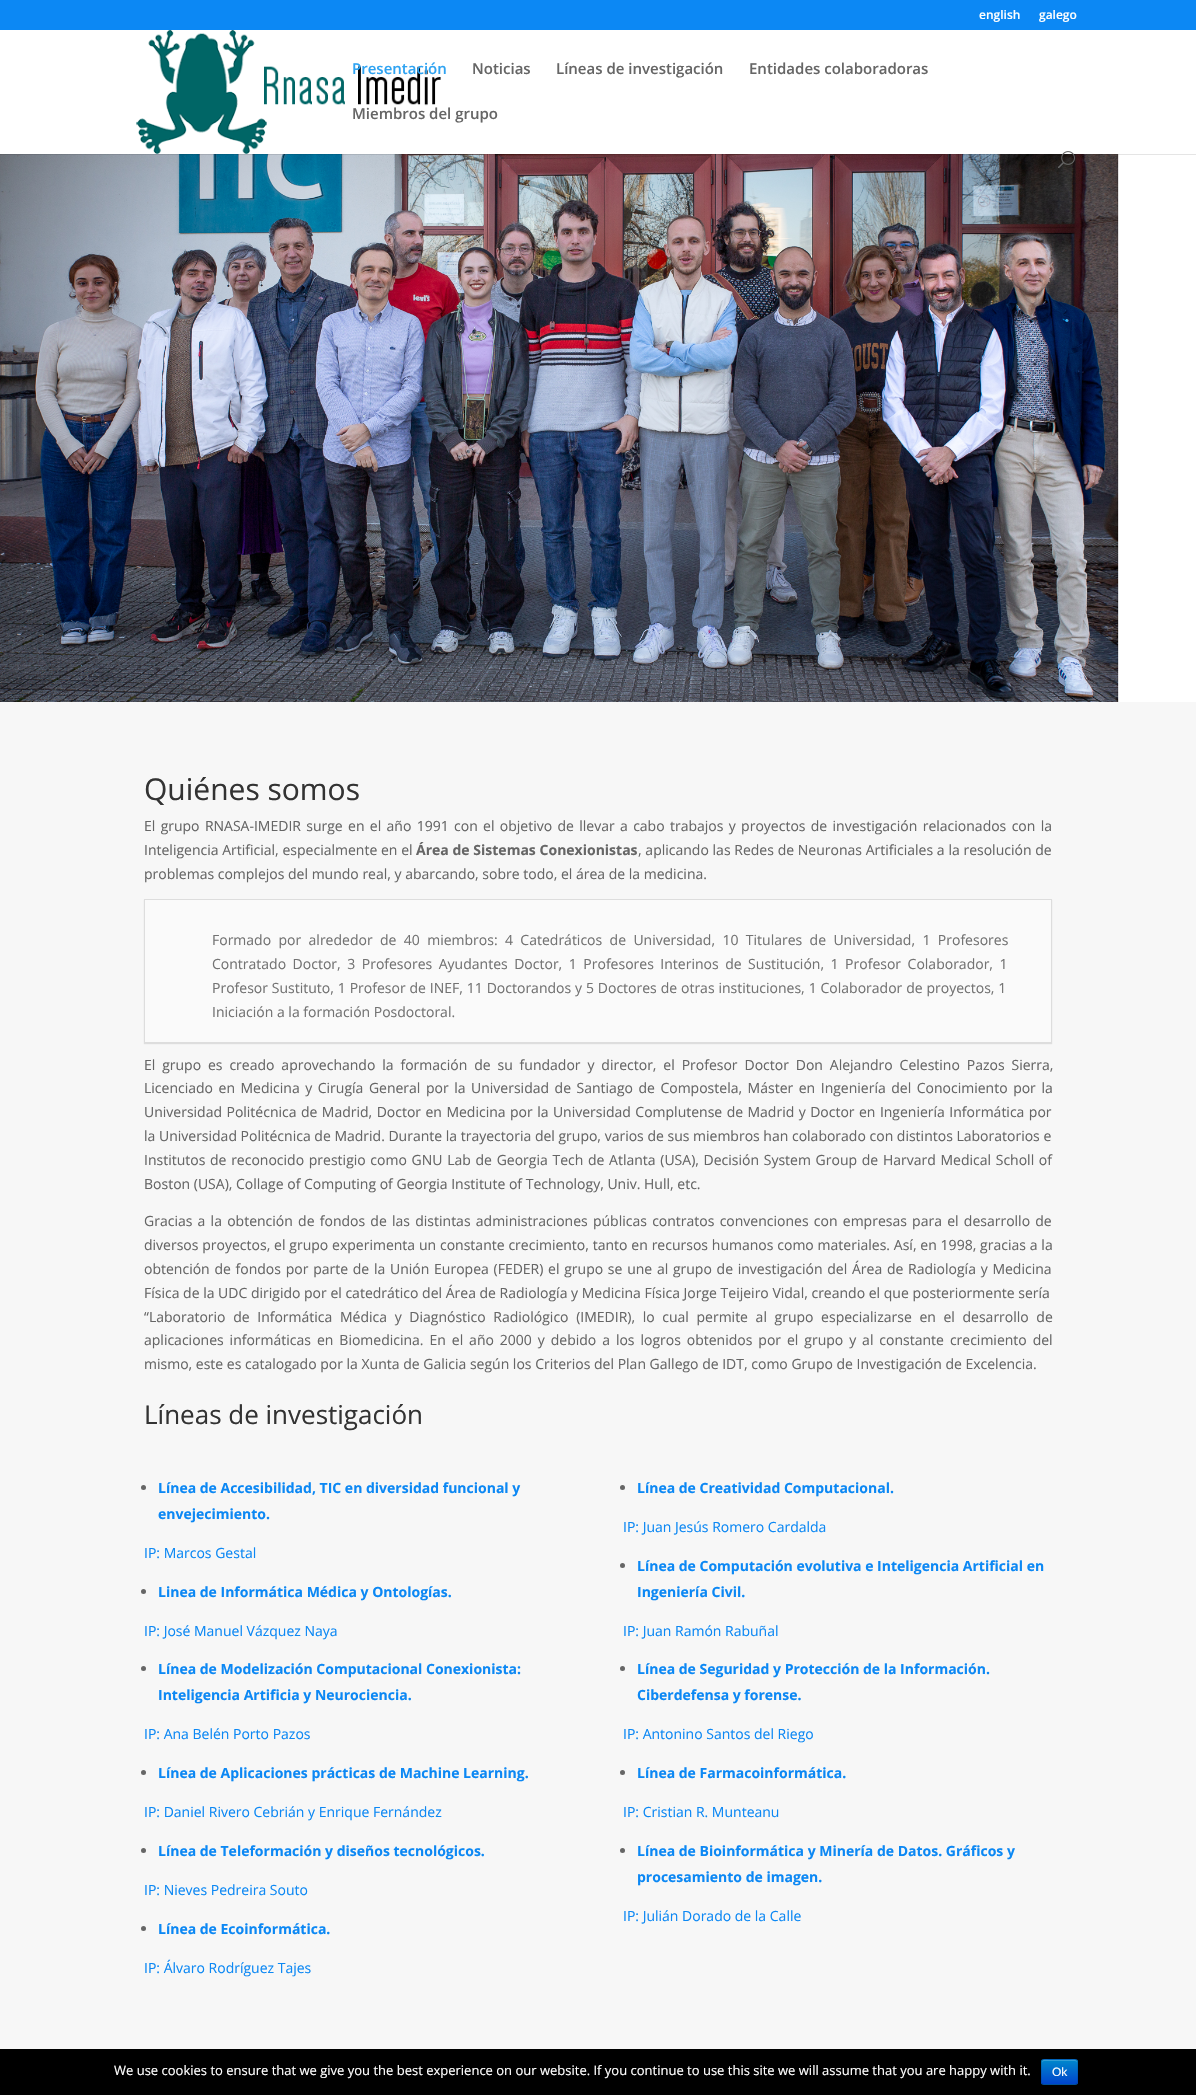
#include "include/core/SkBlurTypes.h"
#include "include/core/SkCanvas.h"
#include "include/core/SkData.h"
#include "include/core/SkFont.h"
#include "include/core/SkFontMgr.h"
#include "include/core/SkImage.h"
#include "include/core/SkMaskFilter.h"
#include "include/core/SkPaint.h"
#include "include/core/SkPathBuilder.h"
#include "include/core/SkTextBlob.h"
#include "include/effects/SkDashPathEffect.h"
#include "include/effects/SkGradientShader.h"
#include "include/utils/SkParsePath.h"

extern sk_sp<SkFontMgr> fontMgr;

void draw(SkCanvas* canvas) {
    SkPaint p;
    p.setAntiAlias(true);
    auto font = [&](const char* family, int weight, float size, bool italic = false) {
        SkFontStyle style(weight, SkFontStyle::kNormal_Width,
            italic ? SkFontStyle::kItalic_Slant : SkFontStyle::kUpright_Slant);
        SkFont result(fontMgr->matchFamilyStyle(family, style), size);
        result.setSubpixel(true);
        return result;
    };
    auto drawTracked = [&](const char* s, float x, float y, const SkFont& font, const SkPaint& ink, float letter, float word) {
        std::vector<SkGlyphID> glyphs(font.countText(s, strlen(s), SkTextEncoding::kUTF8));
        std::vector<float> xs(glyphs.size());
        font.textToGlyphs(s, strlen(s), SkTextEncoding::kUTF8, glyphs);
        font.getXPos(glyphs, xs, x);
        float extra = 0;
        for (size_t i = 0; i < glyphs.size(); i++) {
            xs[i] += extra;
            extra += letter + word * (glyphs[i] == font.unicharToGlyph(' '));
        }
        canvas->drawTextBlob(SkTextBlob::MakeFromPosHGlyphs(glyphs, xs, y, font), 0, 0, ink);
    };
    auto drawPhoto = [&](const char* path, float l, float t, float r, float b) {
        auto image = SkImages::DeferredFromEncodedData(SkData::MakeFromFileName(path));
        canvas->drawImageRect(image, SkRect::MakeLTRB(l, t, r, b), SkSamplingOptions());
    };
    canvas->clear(0xFFFFFFFF);
    p.setColor(0xFF0C88F4);
    canvas->drawRect(SkRect::MakeLTRB(0, 0, 1196, 30), p);
    auto font1 = font("Open Sans", 600, 12);
    p.setColor(0xFFFFFFFF);
    canvas->drawString("english", 979, 19, font1, p);
    canvas->drawString("galego", 1039, 19, font1, p);
    drawPhoto("media/3.png", 0, 154, 1119, 702);
    p.setColor(0x1A000000);
    canvas->drawRect(SkRect::MakeLTRB(0, 154, 1196, 155), p);
    drawPhoto("media/1.png", 136, 30, 441, 154);
    auto font2 = font("Open Sans", 600, 15);
    p.setColor(0xFF2EA3F2);
    canvas->drawString("Presentación", 352, 74, font2, p);
    p.setColor(0xFF666666);
    {
        const struct { const char* s; float x, y; } items[] = {
            {"Noticias", 472, 74},
            {"Líneas de investigación", 556, 74},
            {"Entidades colaboradoras", 749, 74},
            {"Miembros del grupo", 352, 119},
        };
        for (auto [s, x, y] : items) {
            canvas->drawString(s, x, y, font2, p);
        }
    }
    drawPhoto("media/2.png", 1058, 151, 1075, 168);
    p.setColor(0xFFF7F7F7);
    canvas->drawRect(SkRect::MakeLTRB(0, 702, 1196, 2049), p);
    auto font3 = font("Open Sans", 400, 30);
    p.setColor(0xFF333333);
    canvas->drawString("Quiénes somos", 144, 800, font3, p);
    auto font4 = font("Open Sans", 400, 14);
    p.setColor(0xFF666666);
    drawTracked("El grupo RNASA-IMEDIR surge en el año 1991 con el objetivo de llevar a cabo trabajos y proyectos de investigación relacionados con la", 144, 831, font4, p, 0, 1.7f);
    drawTracked("Inteligencia Artificial, especialmente en el", 144, 855, font4, p, 0, 0.1f);
    auto font5 = font("Open Sans", 700, 14);
    drawTracked("Área de Sistemas Conexionistas", 416, 855, font5, p, 0, 0.1f);
    drawTracked(", aplicando las Redes de Neuronas Artificiales a la resolución de", 638, 855, font4, p, 0, 0.1f);
    canvas->drawString("problemas complejos del mundo real, y abarcando, sobre todo, el área de la medicina.", 144, 879, font4, p);
    p.setColor(0x1A000000);
    p.setMaskFilter(SkMaskFilter::MakeBlur(kNormal_SkBlurStyle, 0.5f));
    canvas->drawRect(SkRect::MakeLTRB(144, 900, 1052, 1044), p);
    p.setMaskFilter(nullptr);
    p.setStyle(SkPaint::kStroke_Style);
    p.setStrokeWidth(1);
    p.setColor(0xFFDDDDDD);
    canvas->drawRect(SkRect::MakeLTRB(144.5f, 899.5f, 1051.5f, 1042.5f), p);
    p.setStyle(SkPaint::kFill_Style);
    p.setColor(0xFFFAFAFA);
    canvas->drawRect(SkRect::MakeLTRB(145, 900, 1051, 1042), p);
    p.setColor(0xFF737373);
    drawTracked("Formado por alrededor de 40 miembros: 4 Catedráticos de Universidad, 10 Titulares de Universidad, 1 Profesores", 212, 945, font4, p, 0, 3.75f);
    drawTracked("Contratado Doctor, 3 Profesores Ayudantes Doctor, 1 Profesores Interinos de Sustitución, 1 Profesor Colaborador, 1", 212, 969, font4, p, 0, 2.9f);
    drawTracked("Profesor Sustituto, 1 Profesor de INEF, 11 Doctorandos y 5 Doctores de otras instituciones, 1 Colaborador de proyectos, 1", 212, 993, font4, p, 0, 0.25f);
    canvas->drawString("Iniciación a la formación Posdoctoral.", 212, 1017, font4, p);
    p.setColor(0xFF666666);
    drawTracked("El grupo es creado aprovechando la formación de su fundador y director, el Profesor Doctor Don Alejandro Celestino Pazos Sierra,", 144, 1070, font4, p, 0, 3.25f);
    drawTracked("Licenciado en Medicina y Cirugía General por la Universidad de Santiago de Compostela, Máster en Ingeniería del Conocimiento por la", 144, 1093, font4, p, 0, 1.9f);
    drawTracked("Universidad Politécnica de Madrid, Doctor en Medicina por la Universidad Complutense de Madrid y Doctor en Ingeniería Informática por", 144, 1117, font4, p, 0, 0.8f);
    canvas->drawString("la Universidad Politécnica de Madrid. Durante la trayectoria del grupo, varios de sus miembros han colaborado con distintos Laboratorios e", 144, 1141, font4, p);
    drawTracked("Institutos de reconocido prestigio como GNU Lab de Georgia Tech de Atlanta (USA), Decisión System Group de Harvard Medical Scholl of", 144, 1165, font4, p, 0, 1.05f);
    canvas->drawString("Boston (USA), Collage of Computing of Georgia Institute of Technology, Univ. Hull, etc.", 144, 1189, font4, p);
    drawTracked("Gracias a la obtención de fondos de las distintas administraciones públicas contratos convenciones con empresas para el desarrollo de", 144, 1226, font4, p, 0, 1.6f);
    drawTracked("diversos proyectos, el grupo experimenta un constante crecimiento, tanto en recursos humanos como materiales. Así, en 1998, gracias a la", 144, 1250, font4, p, 0, 0.2f);
    drawTracked("obtención de fondos por parte de la Unión Europea (FEDER) el grupo se une al grupo de investigación del Área de Radiología y Medicina", 144, 1274, font4, p, 0, 1.1f);
    canvas->drawString("Física de la UDC dirigido por el catedrático del Área de Radiología y Medicina Física Jorge Teijeiro Vidal, creando el que posteriormente sería", 144, 1298, font4, p);
    drawTracked("“Laboratorio de Informática Médica y Diagnóstico Radiológico (IMEDIR), lo cual permite al grupo especializarse en el desarrollo de", 144, 1322, font4, p, 0, 4);
    drawTracked("aplicaciones informáticas en Biomedicina. En el año 2000 y debido a los logros obtenidos por el grupo y al constante crecimiento del", 144, 1345, font4, p, 0, 2.3f);
    canvas->drawString("mismo, este es catalogado por la Xunta de Galicia según los Criterios del Plan Gallego de IDT, como Grupo de Investigación de Excelencia.", 144, 1369, font4, p);
    auto font6 = font("Open Sans", 400, 26);
    p.setColor(0xFF333333);
    canvas->drawString("Líneas de investigación", 144, 1424, font6, p);
    p.setColor(0xFF666666);
    canvas->drawCircle(143.5f, 1487.5f, 2.5f, p);
    p.setColor(0xFF0C88F4);
    canvas->drawString("Línea de Accesibilidad, TIC en diversidad funcional y", 158, 1493, font5, p);
    canvas->drawString("envejecimiento.", 158, 1519, font5, p);
    canvas->drawString("IP: Marcos Gestal", 144, 1558, font4, p);
    p.setColor(0xFF666666);
    canvas->drawCircle(143.5f, 1591.5f, 2.5f, p);
    p.setColor(0xFF0C88F4);
    canvas->drawString("Linea de Informática Médica y Ontologías.", 158, 1597, font5, p);
    canvas->drawString("IP: José Manuel Vázquez Naya", 144, 1636, font4, p);
    p.setColor(0xFF666666);
    canvas->drawCircle(143.5f, 1668.5f, 2.5f, p);
    p.setColor(0xFF0C88F4);
    canvas->drawString("Línea de Modelización Computacional Conexionista:", 158, 1674, font5, p);
    canvas->drawString("Inteligencia Artificia y Neurociencia.", 158, 1700, font5, p);
    canvas->drawString("IP: Ana Belén Porto Pazos", 144, 1739, font4, p);
    p.setColor(0xFF666666);
    canvas->drawCircle(143.5f, 1772.5f, 2.5f, p);
    p.setColor(0xFF0C88F4);
    canvas->drawString("Línea de Aplicaciones prácticas de Machine Learning.", 158, 1778, font5, p);
    canvas->drawString("IP: Daniel Rivero Cebrián y Enrique Fernández", 144, 1817, font4, p);
    p.setColor(0xFF666666);
    canvas->drawCircle(143.5f, 1850.5f, 2.5f, p);
    p.setColor(0xFF0C88F4);
    canvas->drawString("Línea de Teleformación y diseños tecnológicos.", 158, 1856, font5, p);
    canvas->drawString("IP: Nieves Pedreira Souto", 144, 1895, font4, p);
    p.setColor(0xFF666666);
    canvas->drawCircle(143.5f, 1928.5f, 2.5f, p);
    p.setColor(0xFF0C88F4);
    canvas->drawString("Línea de Ecoinformática.", 158, 1934, font5, p);
    canvas->drawString("IP: Álvaro Rodríguez Tajes", 144, 1973, font4, p);
    p.setColor(0xFF666666);
    canvas->drawCircle(622.5f, 1487.5f, 2.5f, p);
    p.setColor(0xFF0C88F4);
    canvas->drawString("Línea de Creatividad Computacional.", 637, 1493, font5, p);
    canvas->drawString("IP: Juan Jesús Romero Cardalda", 623, 1532, font4, p);
    p.setColor(0xFF666666);
    canvas->drawCircle(622.5f, 1565.5f, 2.5f, p);
    p.setColor(0xFF0C88F4);
    canvas->drawString("Línea de Computación evolutiva e Inteligencia Artificial en", 637, 1571, font5, p);
    canvas->drawString("Ingeniería Civil.", 637, 1597, font5, p);
    canvas->drawString("IP: Juan Ramón Rabuñal", 623, 1636, font4, p);
    p.setColor(0xFF666666);
    canvas->drawCircle(622.5f, 1668.5f, 2.5f, p);
    p.setColor(0xFF0C88F4);
    canvas->drawString("Línea de Seguridad y Protección de la Información.", 637, 1674, font5, p);
    canvas->drawString("Ciberdefensa y forense.", 637, 1700, font5, p);
    canvas->drawString("IP: Antonino Santos del Riego", 623, 1739, font4, p);
    p.setColor(0xFF666666);
    canvas->drawCircle(622.5f, 1772.5f, 2.5f, p);
    p.setColor(0xFF0C88F4);
    canvas->drawString("Línea de Farmacoinformática.", 637, 1778, font5, p);
    canvas->drawString("IP: Cristian R. Munteanu", 623, 1817, font4, p);
    p.setColor(0xFF666666);
    canvas->drawCircle(622.5f, 1850.5f, 2.5f, p);
    p.setColor(0xFF0C88F4);
    canvas->drawString("Línea de Bioinformática y Minería de Datos. Gráficos y", 637, 1856, font5, p);
    canvas->drawString("procesamiento de imagen.", 637, 1882, font5, p);
    canvas->drawString("IP: Julián Dorado de la Calle", 623, 1921, font4, p);
    p.setColor(0xFF000000);
    canvas->drawRect(SkRect::MakeLTRB(0, 2049, 1196, 2095), p);
    auto font7 = font("Open Sans", 400, 13);
    p.setColor(0xFFFFFFFF);
    canvas->drawString("We use cookies to ensure that we give you the best experience on our website. If you continue to use this site we will assume that you are happy with it.", 114, 2075, font7, p);
    p.setColor(0xFF006DCC);
    canvas->drawRoundRect(SkRect::MakeLTRB(1041, 2059, 1078, 2085), 3, 3, p);
    canvas->save();
    canvas->clipPath(SkPathBuilder().moveTo(1044, 2059).lineTo(1075, 2059).cubicTo(1076.5f, 2059, 1078, 2060.5f, 1078, 2062).lineTo(1078, 2082).cubicTo(1078, 2083.5f, 1076.5f, 2085, 1075, 2085).lineTo(1044, 2085).cubicTo(1042.5f, 2085, 1041, 2083.5f, 1041, 2082).lineTo(1041, 2062).cubicTo(1041, 2060.5f, 1042.5f, 2059, 1044, 2059).close().detach(), true);
    {
        const SkColor colors[] = {0xFF0088CC, 0xFF0044CC};
        const float stops[] = {0, 1};
        const SkPoint ends[] = {{1060, 2060}, {1060, 2084}};
        p.setShader(SkGradientShader::MakeLinear(ends, colors, stops, 2, SkTileMode::kClamp));
        p.setAlpha(255);
    }
    canvas->drawRect(SkRect::MakeLTRB(1041, 2060, 1078, 2084), p);
    canvas->restore();
    p.setShader(nullptr);
    p.setColor(0x33FFFFFF);
    canvas->drawPath(SkPathBuilder().moveTo(1044, 2061).lineTo(1075, 2061).cubicTo(1076, 2061, 1077, 2062, 1077, 2063).cubicTo(1077, 2058.5f, 1073.5f, 2060, 1070, 2060).lineTo(1049, 2060).cubicTo(1045.5f, 2060, 1042, 2058.5f, 1042, 2063).cubicTo(1042, 2062, 1043, 2061, 1044, 2061).close().detach(), p);
    p.setStyle(SkPaint::kStroke_Style);
    p.setColor(0x40000000);
    canvas->drawPath(SkPathBuilder().moveTo(1077, 2084).cubicTo(1076.5f, 2084, 1075.5f, 2084.5f, 1075, 2084.5f).lineTo(1044, 2084.5f).cubicTo(1043.5f, 2084.5f, 1042.5f, 2084, 1042, 2084).detach(), p);
    p.setColor(0x1A000000);
    canvas->drawPath(SkPathBuilder().moveTo(1042, 2084).cubicTo(1042, 2083.5f, 1041.5f, 2082.5f, 1041.5f, 2082).lineTo(1041.5f, 2062).cubicTo(1041.5f, 2061.5f, 1042, 2060.5f, 1042, 2060).cubicTo(1042.5f, 2060, 1043.5f, 2059.5f, 1044, 2059.5f).lineTo(1075, 2059.5f).cubicTo(1075.5f, 2059.5f, 1076.5f, 2060, 1077, 2060).cubicTo(1077, 2060.5f, 1077.5f, 2061.5f, 1077.5f, 2062).lineTo(1077.5f, 2082).cubicTo(1077.5f, 2082.5f, 1077, 2083.5f, 1077, 2084).detach(), p);
    auto font8 = font("Liberation Sans", 400, 12);
    p.setStyle(SkPaint::kFill_Style);
    p.setColor(0xFFFFFFFF);
    canvas->drawString("Ok", 1052, 2076, font8, p);
}
